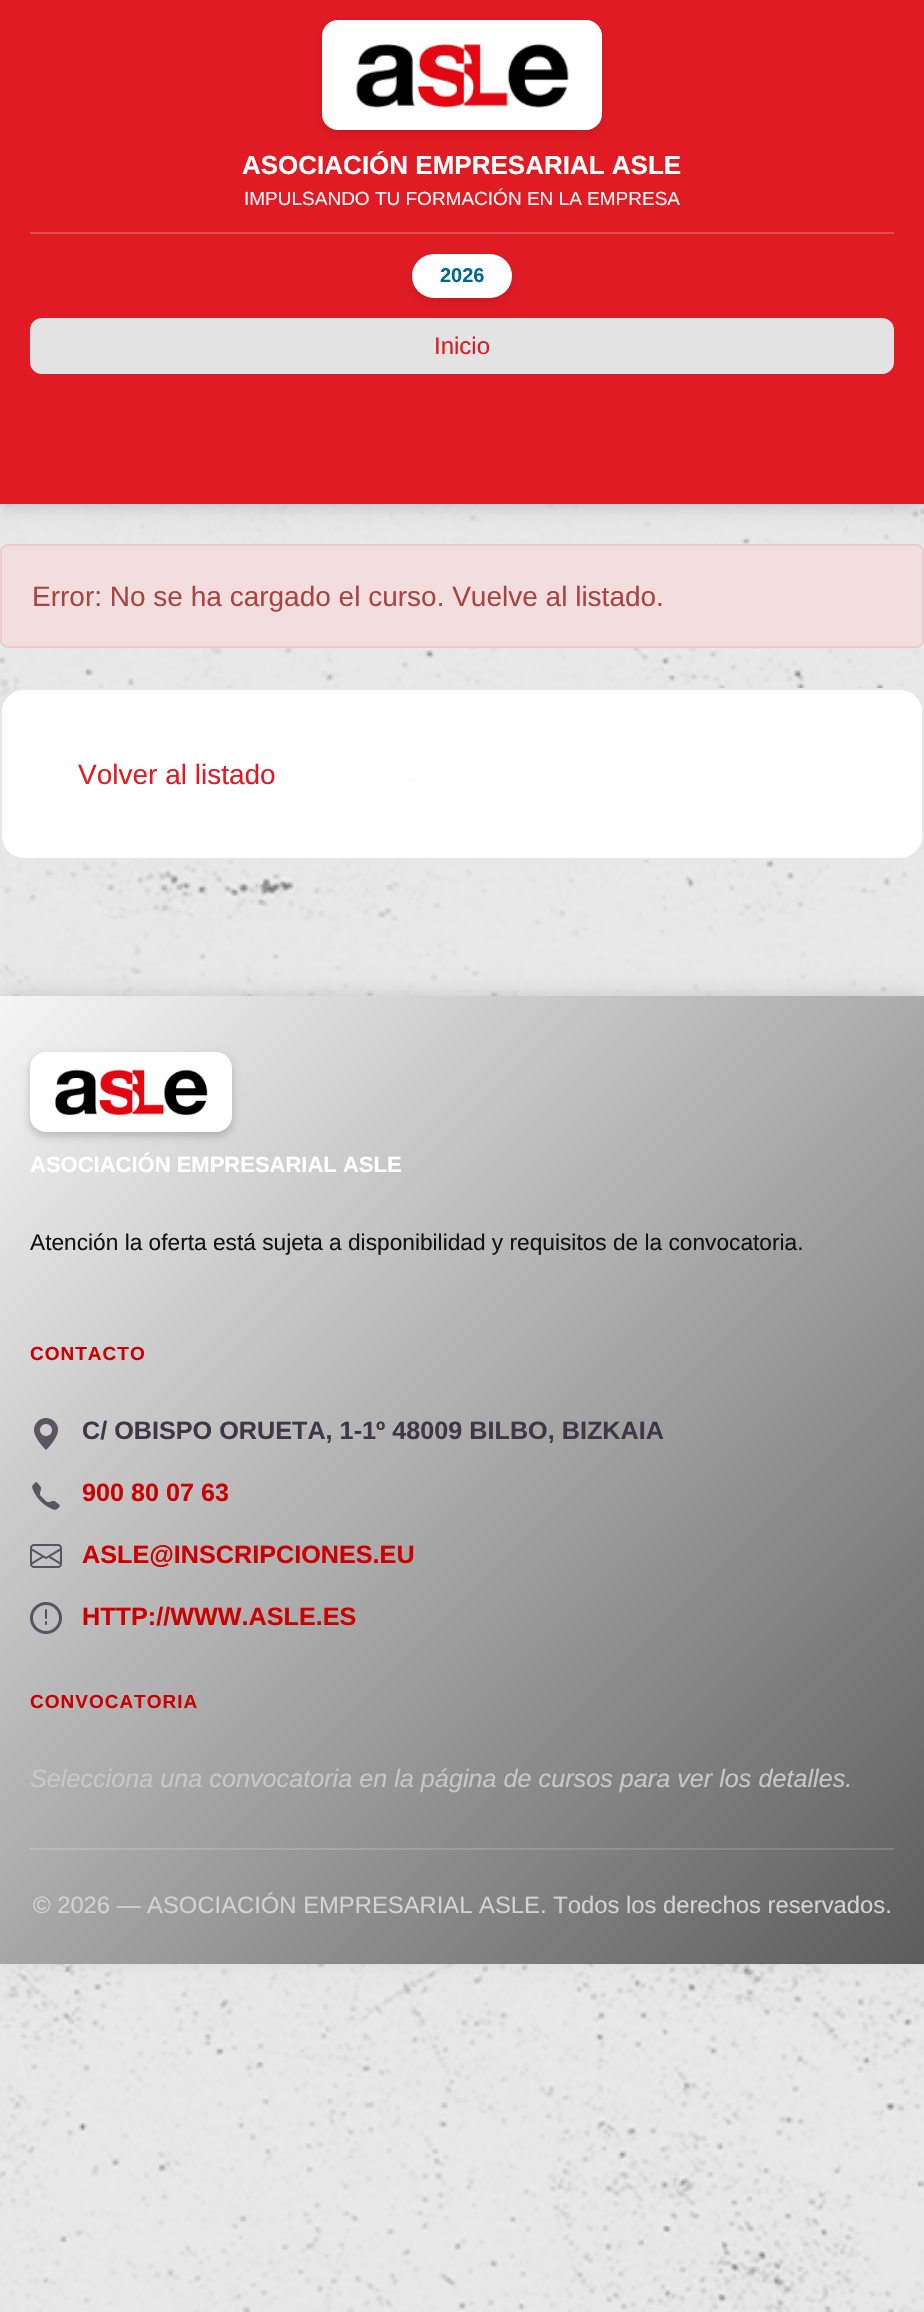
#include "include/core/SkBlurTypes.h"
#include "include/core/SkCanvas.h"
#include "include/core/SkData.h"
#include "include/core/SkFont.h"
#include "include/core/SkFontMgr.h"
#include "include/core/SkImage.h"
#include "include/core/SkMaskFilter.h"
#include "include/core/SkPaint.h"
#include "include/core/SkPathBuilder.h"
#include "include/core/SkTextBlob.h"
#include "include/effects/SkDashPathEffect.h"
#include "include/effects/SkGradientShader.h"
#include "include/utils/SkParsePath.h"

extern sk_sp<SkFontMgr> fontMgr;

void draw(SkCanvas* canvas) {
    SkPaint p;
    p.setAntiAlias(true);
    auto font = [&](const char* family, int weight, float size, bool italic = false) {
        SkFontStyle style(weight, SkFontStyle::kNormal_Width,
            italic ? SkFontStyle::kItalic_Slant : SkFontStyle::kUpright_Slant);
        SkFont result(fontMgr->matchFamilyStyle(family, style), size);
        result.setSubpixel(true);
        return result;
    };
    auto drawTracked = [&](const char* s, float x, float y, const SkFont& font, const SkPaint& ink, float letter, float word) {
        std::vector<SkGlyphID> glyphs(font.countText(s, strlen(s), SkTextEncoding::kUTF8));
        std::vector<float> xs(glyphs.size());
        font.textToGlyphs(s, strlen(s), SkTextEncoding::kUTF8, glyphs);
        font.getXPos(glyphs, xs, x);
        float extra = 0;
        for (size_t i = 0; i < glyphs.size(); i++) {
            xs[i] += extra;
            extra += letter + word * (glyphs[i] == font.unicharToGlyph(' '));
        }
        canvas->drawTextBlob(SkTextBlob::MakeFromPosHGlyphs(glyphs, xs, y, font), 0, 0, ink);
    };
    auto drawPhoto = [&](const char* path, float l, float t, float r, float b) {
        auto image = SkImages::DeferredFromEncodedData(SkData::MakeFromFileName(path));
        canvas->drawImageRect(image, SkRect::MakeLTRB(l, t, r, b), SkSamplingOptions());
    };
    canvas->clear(0xFFFFFFFF);
    drawPhoto("media/1.png", 0, 504, 924, 2312);
    p.setColor(0x26000000);
    p.setMaskFilter(SkMaskFilter::MakeBlur(kNormal_SkBlurStyle, 8));
    canvas->drawRect(SkRect::MakeLTRB(0, 4, 924, 508), p);
    p.setMaskFilter(nullptr);
    p.setColor(0xFFE01B24);
    canvas->drawRect(SkRect::MakeLTRB(0, 0, 924, 504), p);
    p.setColor(0x1A000000);
    p.setMaskFilter(SkMaskFilter::MakeBlur(kNormal_SkBlurStyle, 4));
    canvas->drawRoundRect(SkRect::MakeLTRB(322, 24, 602, 134), 16, 16, p);
    p.setMaskFilter(nullptr);
    p.setColor(0xFFFFFFFF);
    canvas->drawRoundRect(SkRect::MakeLTRB(322, 20, 602, 130), 16, 16, p);
    drawPhoto("media/2.png", 355, 44, 569, 108);
    auto font1 = font("Liberation Sans", 700, 26);
    canvas->drawString("ASOCIACIÓN EMPRESARIAL ASLE", 242, 174, font1, p);
    auto font2 = font("Liberation Sans", 400, 19);
    p.setColor(0xFFFDF4F4);
    canvas->drawString("IMPULSANDO TU FORMACIÓN EN LA EMPRESA", 244, 205, font2, p);
    p.setColor(0xFFE64950);
    canvas->drawRect(SkRect::MakeLTRB(30, 232, 894, 234), p);
    p.setColor(0x1A000000);
    p.setMaskFilter(SkMaskFilter::MakeBlur(kNormal_SkBlurStyle, 4));
    canvas->drawRoundRect(SkRect::MakeLTRB(412, 258, 512, 302), 22, 22, p);
    p.setMaskFilter(nullptr);
    p.setColor(0xFFFFFFFF);
    canvas->drawRoundRect(SkRect::MakeLTRB(412, 254, 512, 298), 22, 22, p);
    auto font3 = font("Liberation Sans", 700, 20);
    p.setColor(0xFF02678F);
    canvas->drawString("2026", 440, 282, font3, p);
    p.setColor(0xFFE3E3E3);
    canvas->drawRoundRect(SkRect::MakeLTRB(30, 318, 894, 374), 12, 12, p);
    auto font4 = font("Liberation Sans", 400, 24);
    p.setColor(0xFFE01B24);
    canvas->drawString("Inicio", 434, 354, font4, p);
    p.setColor(0xFFF2DEDE);
    canvas->drawRoundRect(SkRect::MakeLTRB(1, 545, 923, 647), 7, 7, p);
    p.setStyle(SkPaint::kStroke_Style);
    p.setStrokeWidth(2);
    p.setColor(0xFFEBCCD1);
    canvas->drawRoundRect(SkRect::MakeLTRB(1, 545, 923, 647), 7, 7, p);
    auto font5 = font("Liberation Sans", 400, 28);
    p.setStyle(SkPaint::kFill_Style);
    p.setColor(0xFFA94442);
    canvas->drawString("Error: No se ha cargado el curso. Vuelve al listado.", 32, 606, font5, p);
    p.setColor(0xFAFFFFFF);
    canvas->drawRoundRect(SkRect::MakeLTRB(1, 689, 923, 859), 23, 23, p);
    p.setStyle(SkPaint::kStroke_Style);
    p.setColor(0xFFE5E7EB);
    canvas->drawRoundRect(SkRect::MakeLTRB(1, 689, 923, 859), 23, 23, p);
    p.setStyle(SkPaint::kFill_Style);
    p.setColor(0xFFE01B24);
    canvas->drawString("Volver al listado", 78, 784, font5, p);
    p.setColor(0x1A000000);
    p.setMaskFilter(SkMaskFilter::MakeBlur(kNormal_SkBlurStyle, 8));
    canvas->drawRect(SkRect::MakeLTRB(0, 992, 924, 1960), p);
    p.setMaskFilter(nullptr);
    {
        const SkColor colors[] = {0xFFF5F5F5, 0xFF5C5C5C};
        const float stops[] = {0, 1};
        const SkPoint ends[] = {{-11, 1007}, {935, 1953}};
        p.setShader(SkGradientShader::MakeLinear(ends, colors, stops, 2, SkTileMode::kClamp));
        p.setAlpha(255);
    }
    canvas->drawRect(SkRect::MakeLTRB(0, 996, 924, 1964), p);
    p.setShader(nullptr);
    p.setColor(0x33000000);
    p.setMaskFilter(SkMaskFilter::MakeBlur(kNormal_SkBlurStyle, 4));
    canvas->drawRoundRect(SkRect::MakeLTRB(30, 1056, 232, 1136), 16, 16, p);
    p.setMaskFilter(nullptr);
    p.setColor(0xFFFFFFFF);
    canvas->drawRoundRect(SkRect::MakeLTRB(30, 1052, 232, 1132), 16, 16, p);
    drawPhoto("media/3.png", 54, 1069, 208, 1116);
    auto font6 = font("Liberation Sans", 700, 22);
    canvas->drawString("ASOCIACIÓN EMPRESARIAL ASLE", 30, 1172, font6, p);
    auto font7 = font("Liberation Sans", 400, 22.7f);
    p.setColor(0xFF131313);
    canvas->drawString("Atención la oferta está sujeta a disponibilidad y requisitos de la convocatoria.", 30, 1250, font7, p);
    auto font8 = font("Liberation Sans", 700, 19);
    p.setColor(0xFFCC0000);
    drawTracked("CONTACTO", 30, 1360, font8, p, 1, 0);
    drawPhoto("media/4.png", 34, 1418, 58, 1450);
    auto font9 = font("Liberation Sans", 700, 25.2f);
    p.setColor(0xFF3D3846);
    canvas->drawString("C/ OBISPO ORUETA, 1-1º 48009 BILBO, BIZKAIA", 82, 1439, font9, p);
    drawPhoto("media/5.png", 32, 1482, 60, 1510);
    p.setColor(0xFFCC0000);
    canvas->drawString("900 80 07 63", 82, 1501, font9, p);
    drawPhoto("media/6.png", 30, 1544, 62, 1568);
    canvas->drawString("ASLE@INSCRIPCIONES.EU", 82, 1563, font9, p);
    drawPhoto("media/7.png", 30, 1602, 62, 1634);
    canvas->drawString("HTTP://WWW.ASLE.ES", 82, 1625, font9, p);
    drawTracked("CONVOCATORIA", 30, 1708, font8, p, 1, 0);
    auto font10 = font("Liberation Sans", 400, 25.2f, true);
    p.setColor(0xFFC7C7C7);
    canvas->drawString("Selecciona una convocatoria en la página de cursos para ver los detalles.", 30, 1787, font10, p);
    p.setColor(0x26FFFFFF);
    canvas->drawRect(SkRect::MakeLTRB(30, 1848, 894, 1850), p);
    auto font11 = font("Liberation Sans", 400, 23.8f);
    p.setColor(0xFFD3D3D3);
    canvas->drawString("© 2026 — ASOCIACIÓN EMPRESARIAL ASLE. Todos los derechos reservados.", 33, 1913, font11, p);
}
